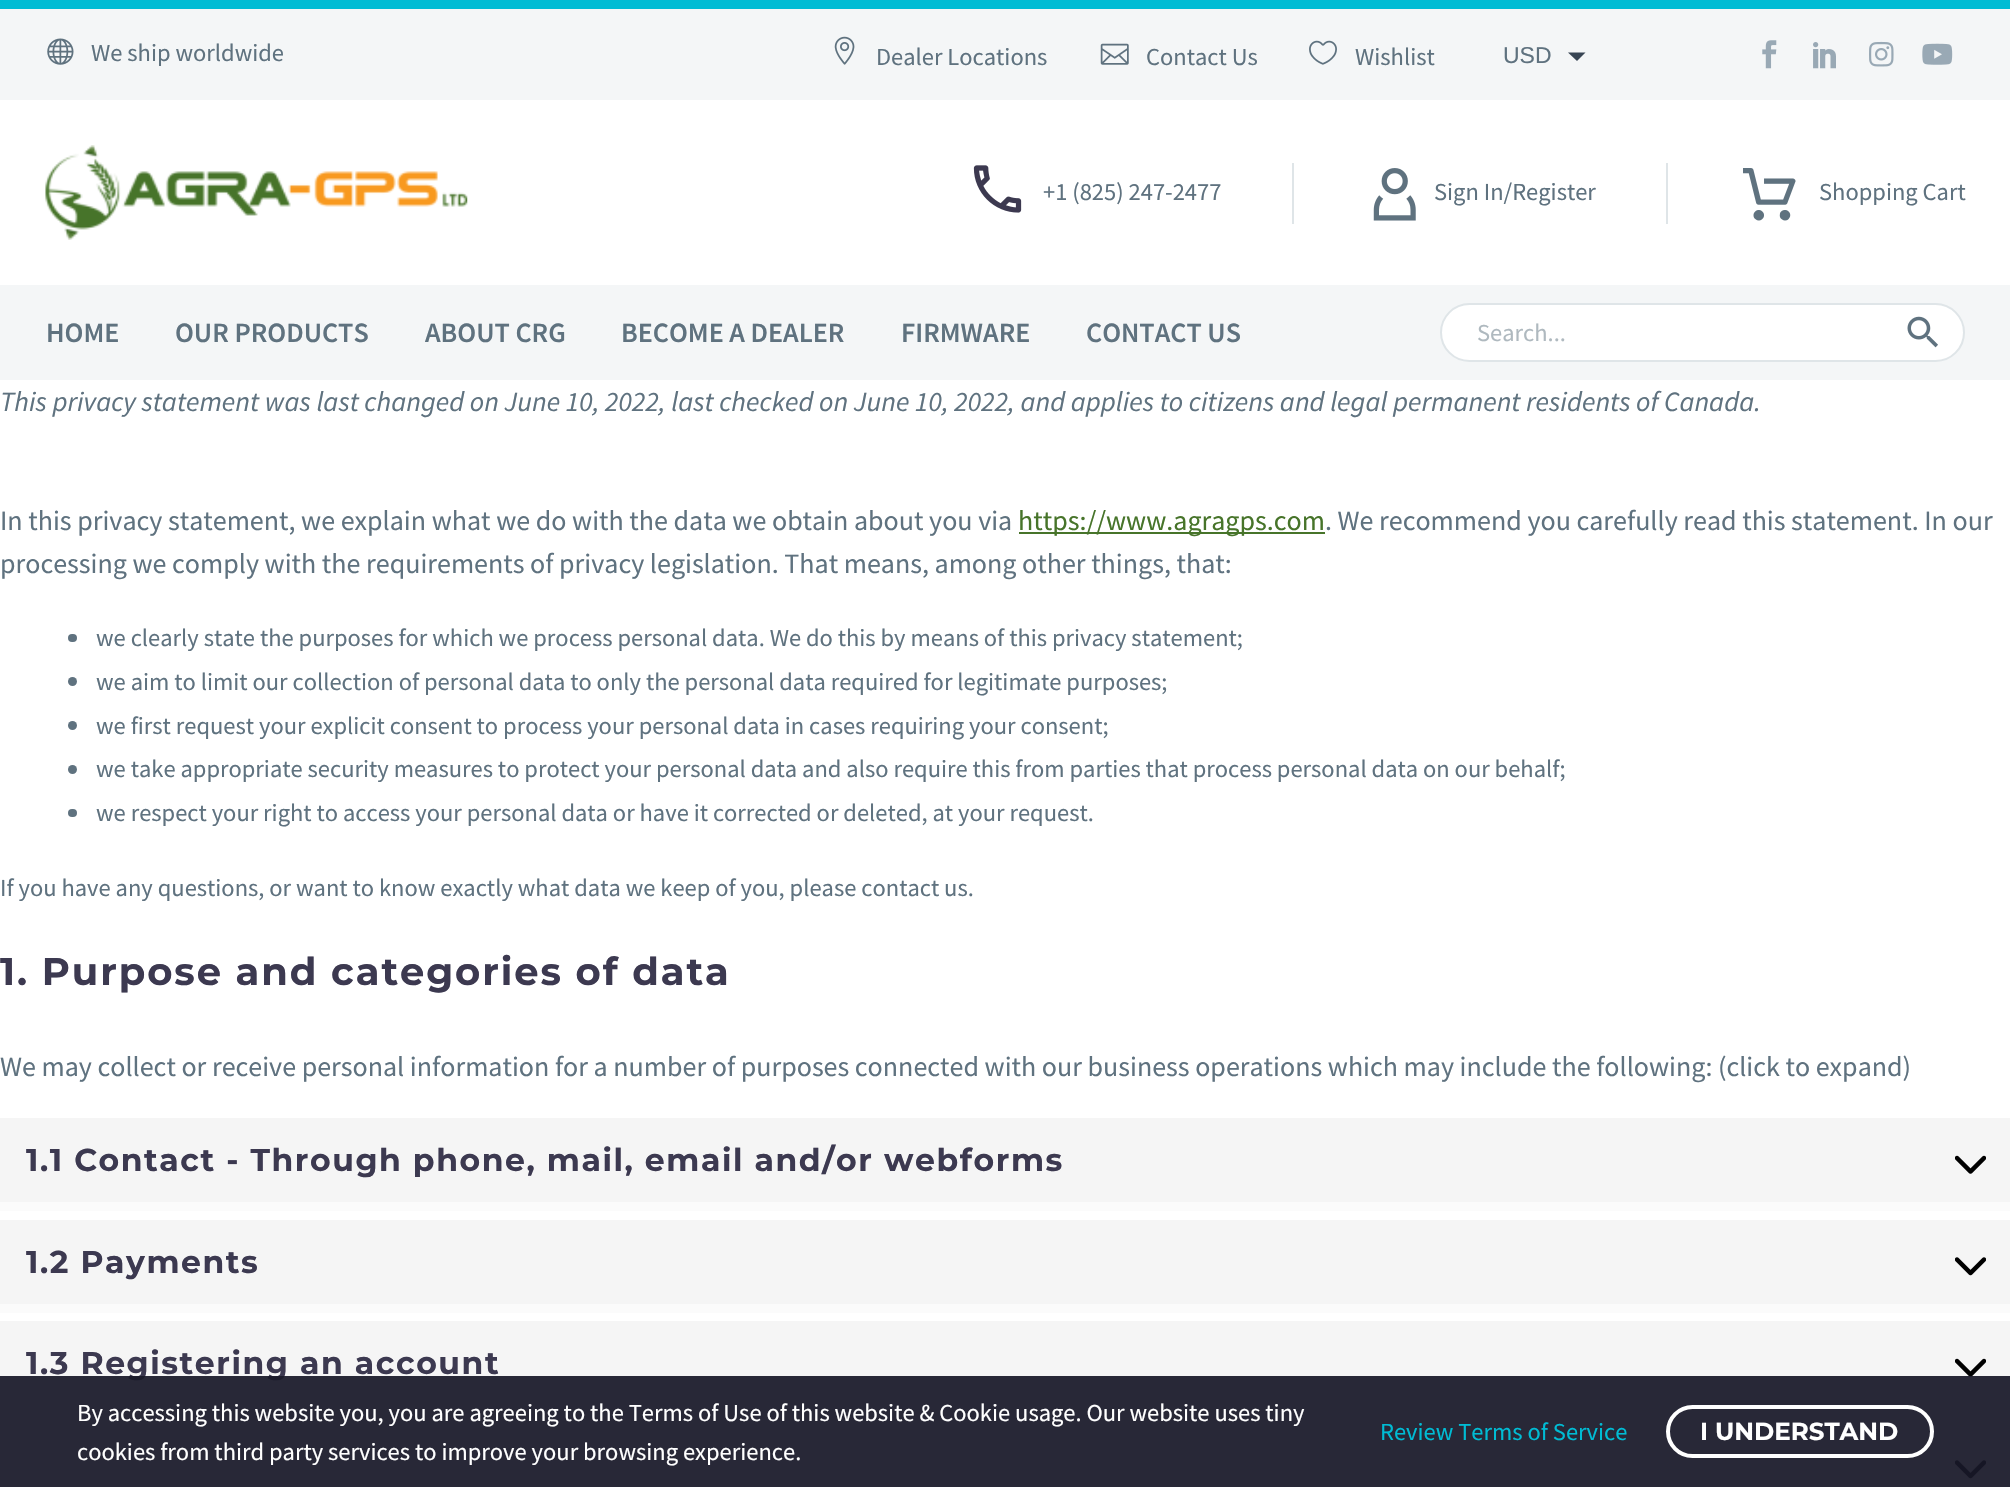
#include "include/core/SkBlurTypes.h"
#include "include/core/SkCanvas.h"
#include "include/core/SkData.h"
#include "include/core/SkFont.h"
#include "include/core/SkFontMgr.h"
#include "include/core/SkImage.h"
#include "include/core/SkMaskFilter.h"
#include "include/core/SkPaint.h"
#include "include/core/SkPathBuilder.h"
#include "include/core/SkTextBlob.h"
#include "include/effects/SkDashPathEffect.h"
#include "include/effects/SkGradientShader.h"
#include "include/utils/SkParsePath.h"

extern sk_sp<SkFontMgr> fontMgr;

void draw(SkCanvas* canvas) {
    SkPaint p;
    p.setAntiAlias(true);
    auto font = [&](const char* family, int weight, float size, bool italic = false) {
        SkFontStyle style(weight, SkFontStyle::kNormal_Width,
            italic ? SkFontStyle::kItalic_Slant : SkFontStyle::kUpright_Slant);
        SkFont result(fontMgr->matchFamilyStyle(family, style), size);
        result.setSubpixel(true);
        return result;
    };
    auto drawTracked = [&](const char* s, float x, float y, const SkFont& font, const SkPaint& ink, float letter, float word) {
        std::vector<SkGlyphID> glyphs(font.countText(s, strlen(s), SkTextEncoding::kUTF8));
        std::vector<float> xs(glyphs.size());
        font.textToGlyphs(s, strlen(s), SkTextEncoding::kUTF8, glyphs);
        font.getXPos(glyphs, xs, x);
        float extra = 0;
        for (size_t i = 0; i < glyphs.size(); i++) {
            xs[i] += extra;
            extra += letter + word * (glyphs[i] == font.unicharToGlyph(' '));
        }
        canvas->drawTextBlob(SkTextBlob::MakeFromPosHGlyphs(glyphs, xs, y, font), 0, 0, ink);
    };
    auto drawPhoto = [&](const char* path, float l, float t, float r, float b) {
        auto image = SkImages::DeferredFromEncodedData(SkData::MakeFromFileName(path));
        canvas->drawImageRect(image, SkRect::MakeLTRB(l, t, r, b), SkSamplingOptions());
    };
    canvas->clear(0xFFFFFFFF);
    p.setColor(0xFFF4F6F7);
    canvas->drawRect(SkRect::MakeLTRB(0, 9, 2010, 100), p);
    p.setColor(0xFF00BCD4);
    canvas->drawRect(SkRect::MakeLTRB(0, 0, 2010, 9), p);
    drawPhoto("media/1.png", 47, 38, 74, 65);
    auto font1 = font("Source Sans Pro", 400, 24.5f);
    p.setColor(0xFF5F727F);
    canvas->drawString("We ship worldwide", 91, 61, font1, p);
    drawPhoto("media/2.png", 834, 36, 855, 65);
    canvas->drawString("Dealer Locations", 876, 65, font1, p);
    drawPhoto("media/3.png", 1100, 43, 1129, 65);
    canvas->drawString("Contact Us", 1146, 65, font1, p);
    drawPhoto("media/4.png", 1309, 40, 1337, 65);
    canvas->drawString("Wishlist", 1355, 65, font1, p);
    auto font2 = font("Liberation Sans", 400, 23);
    canvas->drawString("USD", 1503, 63, font2, p);
    p.setColor(0xFF384554);
    canvas->drawPath(SkPathBuilder().moveTo(1568, 52.5f).lineTo(1585.5f, 52.5f).lineTo(1577, 61).close().detach(), p);
    drawPhoto("media/5.png", 1762, 40, 1777, 69);
    drawPhoto("media/6.png", 1813, 42, 1836, 69);
    drawPhoto("media/7.png", 1869, 41, 1894, 67);
    drawPhoto("media/8.png", 1922, 43, 1953, 65);
    drawPhoto("media/9.png", 45, 145, 468, 240);
    drawPhoto("media/10.png", 973, 165, 1022, 213);
    p.setColor(0xFF5F727F);
    canvas->drawString("+1 (825) 247-2477", 1043, 200, font1, p);
    p.setColor(0xFFDFE5E8);
    canvas->drawRect(SkRect::MakeLTRB(1292, 163, 1294, 224), p);
    drawPhoto("media/11.png", 1373, 168, 1416, 221);
    p.setColor(0xFF5F727F);
    canvas->drawString("Sign In/Register", 1434, 200, font1, p);
    p.setColor(0xFFDFE5E8);
    canvas->drawRect(SkRect::MakeLTRB(1666, 163, 1668, 224), p);
    drawPhoto("media/12.png", 1743, 168, 1796, 221);
    p.setColor(0xFF5F727F);
    canvas->drawString("Shopping Cart", 1819, 200, font1, p);
    p.setColor(0xFFF4F6F7);
    canvas->drawRect(SkRect::MakeLTRB(0, 285, 2010, 380), p);
    auto font3 = font("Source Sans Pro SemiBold", 600, 28);
    p.setColor(0xFF5F727F);
    {
        const struct { const char* s; float x, y; } items[] = {
            {"HOME", 46, 342},
            {"OUR PRODUCTS", 175, 342},
            {"ABOUT CRG", 425, 342},
            {"BECOME A DEALER", 621, 342},
            {"FIRMWARE", 901, 342},
            {"CONTACT US", 1086, 342},
        };
        for (auto [s, x, y] : items) {
            canvas->drawString(s, x, y, font3, p);
        }
    }
    p.setColor(0xFFFFFFFF);
    canvas->drawRoundRect(SkRect::MakeLTRB(1441, 304, 1964, 361), 28.5f, 28.5f, p);
    p.setStyle(SkPaint::kStroke_Style);
    p.setStrokeWidth(2);
    p.setColor(0xFFDFE5E8);
    canvas->drawRoundRect(SkRect::MakeLTRB(1441, 304, 1964, 361), 28.5f, 28.5f, p);
    p.setStyle(SkPaint::kFill_Style);
    p.setColor(0xFFAFB9BF);
    canvas->drawString("Search...", 1477, 341, font1, p);
    drawPhoto("media/13.png", 1907, 316, 1938, 348);
    auto font4 = font("Source Sans Pro", 400, 28, true);
    p.setColor(0xFF5F727F);
    canvas->drawString("This privacy statement was last changed on June 10, 2022, last checked on June 10, 2022, and applies to citizens and legal permanent residents of Canada.", 0, 411, font4, p);
    auto font5 = font("Source Sans Pro", 400, 28);
    canvas->drawString("In this privacy statement, we explain what we do with the data we obtain about you via", 0, 530, font5, p);
    p.setColor(0xFF47742A);
    canvas->drawRect(SkRect::MakeLTRB(1019, 532, 1325, 534), p);
    canvas->drawString("https://www.agragps.com", 1018, 530, font5, p);
    p.setColor(0xFF5F727F);
    canvas->drawString(". We recommend you carefully read this statement. In our", 1325, 530, font5, p);
    canvas->drawString("processing we comply with the requirements of privacy legislation. That means, among other things, that:", 0, 573, font5, p);
    canvas->drawRoundRect(SkRect::MakeLTRB(68, 634, 77, 642), 4, 4, p);
    canvas->drawString("we clearly state the purposes for which we process personal data. We do this by means of this privacy statement;", 96, 646, font1, p);
    canvas->drawCircle(72.5f, 681.5f, 4.5f, p);
    canvas->drawString("we aim to limit our collection of personal data to only the personal data required for legitimate purposes;", 96, 690, font1, p);
    canvas->drawCircle(72.5f, 725.5f, 4.5f, p);
    canvas->drawString("we first request your explicit consent to process your personal data in cases requiring your consent;", 96, 734, font1, p);
    canvas->drawCircle(72.5f, 769.5f, 4.5f, p);
    canvas->drawString("we take appropriate security measures to protect your personal data and also require this from parties that process personal data on our behalf;", 96, 777, font1, p);
    canvas->drawRoundRect(SkRect::MakeLTRB(68, 809, 77, 817), 4, 4, p);
    canvas->drawString("we respect your right to access your personal data or have it corrected or deleted, at your request.", 96, 821, font1, p);
    canvas->drawString("If you have any questions, or want to know exactly what data we keep of you, please contact us.", 0, 896, font1, p);
    auto font6 = font("Montserrat", 700, 38.5f);
    p.setColor(0xFF3C3950);
    drawTracked("1. Purpose and categories of data", 0, 985, font6, p, 1.9f, 0);
    p.setColor(0xFF5F727F);
    canvas->drawString("We may collect or receive personal information for a number of purposes connected with our business operations which may include the following: (click to expand)", 0, 1076, font5, p);
    p.setColor(0xFFFBFBFB);
    canvas->drawRect(SkRect::MakeLTRB(0, 1202, 2010, 1211), p);
    p.setColor(0xFFF5F5F5);
    canvas->drawRect(SkRect::MakeLTRB(0, 1118, 2010, 1202), p);
    auto font7 = font("Montserrat", 700, 31.5f);
    p.setColor(0xFF3C3950);
    drawTracked("1.1 Contact - Through phone, mail, email and/or webforms", 26, 1171, font7, p, 1.57f, 0);
    drawPhoto("media/14.png", 1955, 1155, 1986, 1174);
    p.setColor(0xFFFBFBFB);
    canvas->drawRect(SkRect::MakeLTRB(0, 1304, 2010, 1313), p);
    p.setColor(0xFFF5F5F5);
    canvas->drawRect(SkRect::MakeLTRB(0, 1220, 2010, 1304), p);
    p.setColor(0xFF3C3950);
    drawTracked("1.2 Payments", 26, 1273, font7, p, 1.57f, 0);
    drawPhoto("media/15.png", 1955, 1257, 1986, 1276);
    p.setColor(0xFFFBFBFB);
    canvas->drawRect(SkRect::MakeLTRB(0, 1405, 2010, 1414), p);
    p.setColor(0xFFF5F5F5);
    canvas->drawRect(SkRect::MakeLTRB(0, 1321, 2010, 1405), p);
    p.setColor(0xFF3C3950);
    drawTracked("1.3 Registering an account", 26, 1374, font7, p, 1.57f, 0);
    drawPhoto("media/14.png", 1955, 1358, 1986, 1377);
    p.setColor(0xFFF5F5F5);
    canvas->drawRect(SkRect::MakeLTRB(0, 1423, 2010, 1487), p);
    drawPhoto("media/15.png", 1955, 1460, 1986, 1479);
    p.setColor(0xED181828);
    canvas->drawRect(SkRect::MakeLTRB(0, 1376, 2010, 1487), p);
    p.setColor(0xFFFFFFFF);
    canvas->drawString("By accessing this website you, you are agreeing to the Terms of Use of this website & Cookie usage. Our website uses tiny", 77, 1421, font1, p);
    canvas->drawString("cookies from third party services to improve your browsing experience.", 77, 1460, font1, p);
    p.setColor(0xFF00BCD4);
    canvas->drawString("Review Terms of Service", 1380, 1440, font1, p);
    p.setStyle(SkPaint::kStroke_Style);
    p.setStrokeWidth(4);
    p.setColor(0xFFFFFFFF);
    canvas->drawRoundRect(SkRect::MakeLTRB(1668, 1407, 1932, 1456), 24.5f, 24.5f, p);
    auto font8 = font("Montserrat", 700, 24.5f);
    p.setStyle(SkPaint::kFill_Style);
    canvas->drawString("I UNDERSTAND", 1700, 1440, font8, p);
}
